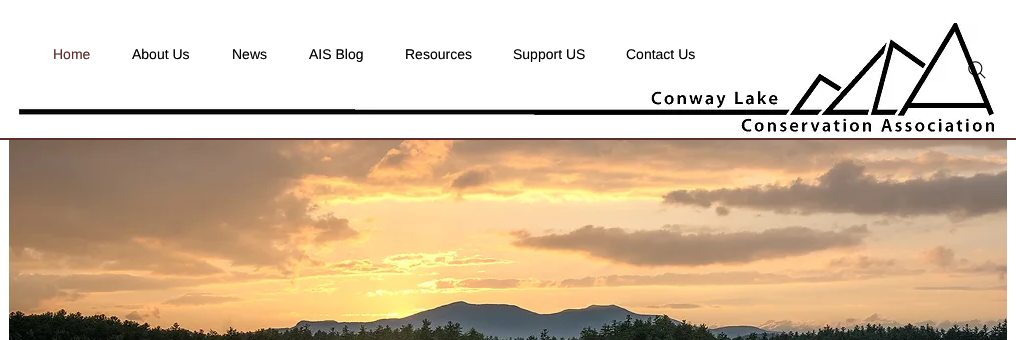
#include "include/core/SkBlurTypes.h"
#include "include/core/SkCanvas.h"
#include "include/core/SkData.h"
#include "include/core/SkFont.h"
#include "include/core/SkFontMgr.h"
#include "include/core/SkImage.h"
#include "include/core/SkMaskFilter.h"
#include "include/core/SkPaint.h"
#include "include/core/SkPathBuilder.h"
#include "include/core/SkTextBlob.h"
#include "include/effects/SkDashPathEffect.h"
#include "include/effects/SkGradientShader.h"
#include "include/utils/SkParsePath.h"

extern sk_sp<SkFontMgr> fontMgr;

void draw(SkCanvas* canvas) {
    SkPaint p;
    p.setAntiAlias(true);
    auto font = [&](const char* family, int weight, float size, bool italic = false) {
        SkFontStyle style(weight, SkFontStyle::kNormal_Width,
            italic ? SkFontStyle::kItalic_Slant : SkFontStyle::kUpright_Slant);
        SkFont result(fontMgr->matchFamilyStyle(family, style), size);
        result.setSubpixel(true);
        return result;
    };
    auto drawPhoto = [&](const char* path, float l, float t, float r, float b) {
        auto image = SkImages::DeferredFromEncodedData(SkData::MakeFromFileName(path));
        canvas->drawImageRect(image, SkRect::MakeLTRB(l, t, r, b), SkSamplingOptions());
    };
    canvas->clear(0xFFFFFFFF);
    drawPhoto("media/1.png", 18, 23, 994, 133);
    auto font1 = font("Liberation Sans", 400, 14);
    p.setColor(0xFF5B2F2C);
    canvas->drawString("Home", 53, 59, font1, p);
    p.setColor(0xFF000000);
    {
        const struct { const char* s; float x, y; } items[] = {
            {"About Us", 132, 59},
            {"News", 232, 59},
            {"AIS Blog", 309, 59},
            {"Resources", 405, 59},
            {"Support US", 513, 59},
            {"Contact Us", 626, 59},
        };
        for (auto [s, x, y] : items) {
            canvas->drawString(s, x, y, font1, p);
        }
    }
    drawPhoto("media/2.png", 968, 61, 986, 79);
    p.setColor(0xFF5B2F2C);
    canvas->drawRect(SkRect::MakeLTRB(0, 138, 1016, 140), p);
    drawPhoto("media/3.png", 9, 140, 1007, 340);
}
